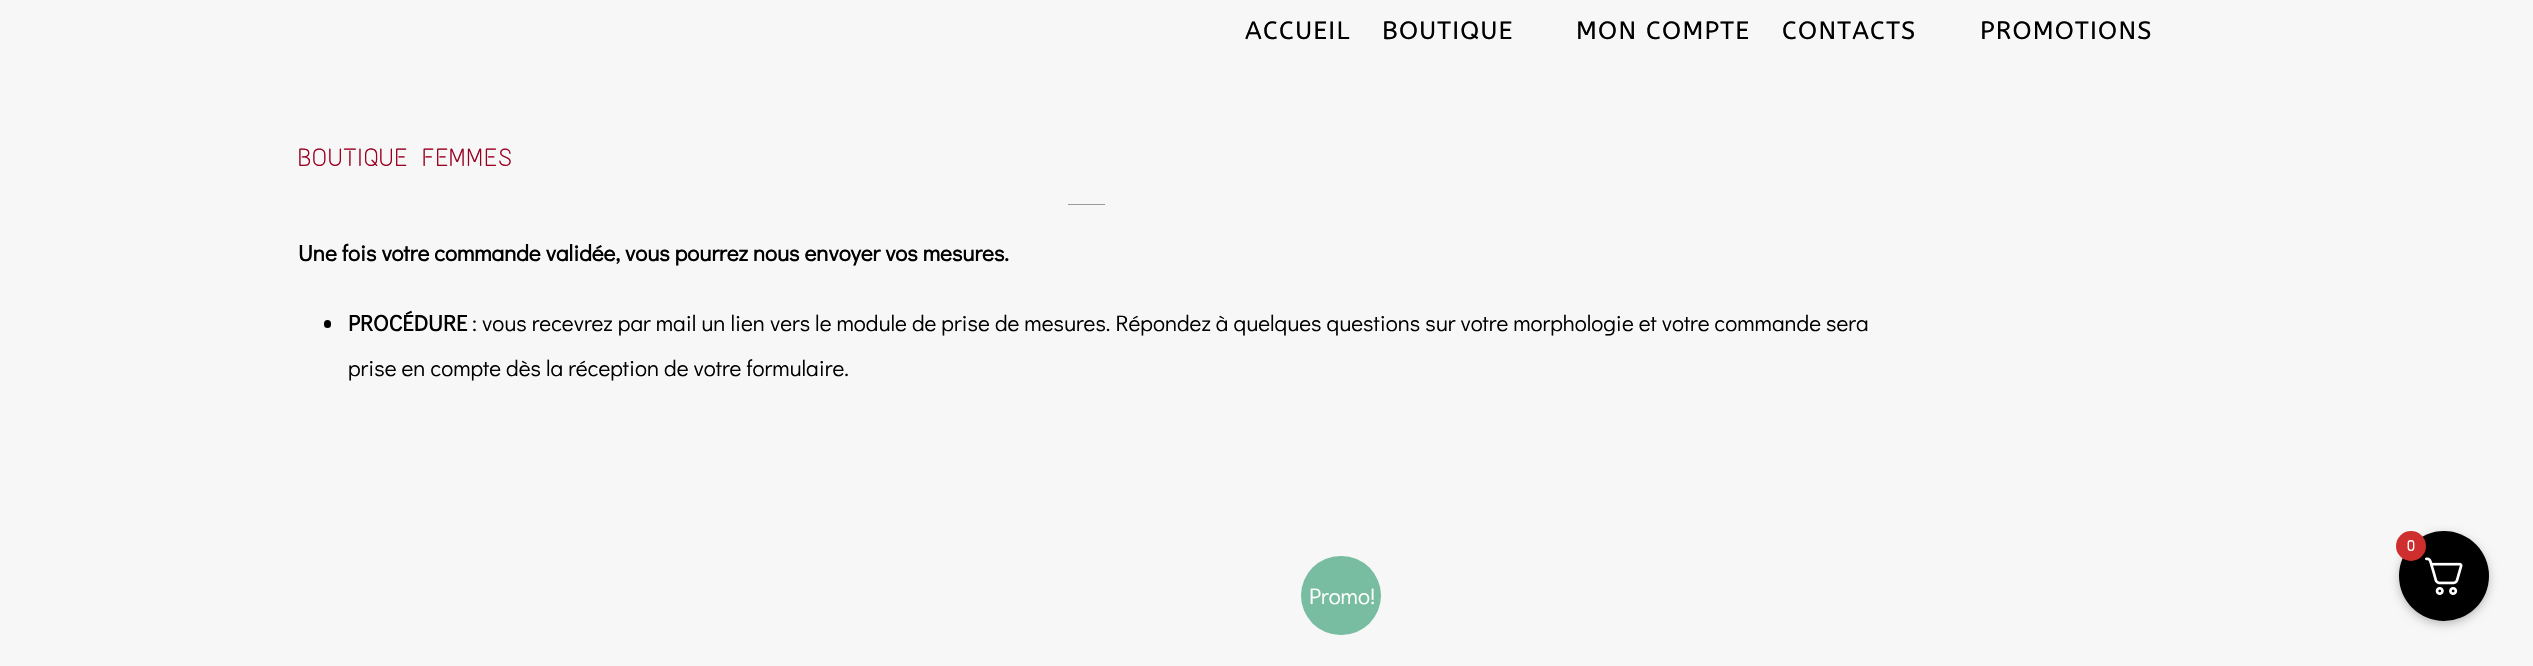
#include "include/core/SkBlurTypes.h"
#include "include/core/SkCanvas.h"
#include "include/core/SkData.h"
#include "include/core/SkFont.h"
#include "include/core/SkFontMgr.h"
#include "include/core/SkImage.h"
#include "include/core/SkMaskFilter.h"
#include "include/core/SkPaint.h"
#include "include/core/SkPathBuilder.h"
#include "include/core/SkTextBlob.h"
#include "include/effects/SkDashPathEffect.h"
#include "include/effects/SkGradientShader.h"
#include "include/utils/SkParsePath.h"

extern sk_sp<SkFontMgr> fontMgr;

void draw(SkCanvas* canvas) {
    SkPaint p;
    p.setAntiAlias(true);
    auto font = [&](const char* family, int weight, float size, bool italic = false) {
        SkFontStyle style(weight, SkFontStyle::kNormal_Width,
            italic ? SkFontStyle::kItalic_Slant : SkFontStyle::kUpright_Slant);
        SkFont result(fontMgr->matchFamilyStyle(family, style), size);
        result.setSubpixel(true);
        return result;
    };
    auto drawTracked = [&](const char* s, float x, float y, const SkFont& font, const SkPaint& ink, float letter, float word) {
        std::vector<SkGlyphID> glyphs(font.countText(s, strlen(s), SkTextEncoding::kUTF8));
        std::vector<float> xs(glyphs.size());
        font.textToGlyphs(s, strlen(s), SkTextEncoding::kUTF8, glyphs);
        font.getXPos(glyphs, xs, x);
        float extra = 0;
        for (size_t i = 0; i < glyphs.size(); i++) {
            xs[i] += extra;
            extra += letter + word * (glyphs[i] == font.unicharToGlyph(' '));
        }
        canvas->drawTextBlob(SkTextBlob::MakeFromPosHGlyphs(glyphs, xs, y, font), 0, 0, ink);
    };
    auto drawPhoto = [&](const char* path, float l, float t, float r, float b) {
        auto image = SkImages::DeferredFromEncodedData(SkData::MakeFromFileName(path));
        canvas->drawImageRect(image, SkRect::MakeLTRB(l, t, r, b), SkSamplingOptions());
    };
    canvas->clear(0xFFF7F7F7);
    auto font1 = font("ABeeZee", 400, 25);
    p.setColor(0xFF000000);
    {
        const struct { const char* s; float x, y; } items[] = {
            {"ACCUEIL", 1245, 39},
            {"BOUTIQUE", 1382, 39},
            {"MON COMPTE", 1576, 39},
            {"CONTACTS", 1782, 39},
            {"PROMOTIONS", 1980, 39},
        };
        for (auto [s, x, y] : items) {
            drawTracked(s, x, y, font1, p, 1.25f, 0);
        }
    }
    auto font2 = font("Text Me One", 400, 25);
    p.setColor(0xFF990021);
    drawTracked("BOUTIQUE FEMMES", 298, 166, font2, p, 1.25f, 0);
    p.setColor(0xFF999999);
    canvas->drawRect(SkRect::MakeLTRB(1068, 204, 1105, 205), p);
    auto font3 = font("Didact Gothic", 700, 22.5f);
    p.setColor(0xFF000000);
    canvas->drawString("Une fois votre commande validée, vous pourrez nous envoyer vos mesures.", 298, 261, font3, p);
    canvas->drawRoundRect(SkRect::MakeLTRB(324, 320, 331, 328), 3.5f, 3.5f, p);
    canvas->drawString("PROCÉDURE", 348, 331, font3, p);
    auto font4 = font("Didact Gothic", 400, 22.5f);
    canvas->drawString(": vous recevrez par mail un lien vers le module de prise de mesures. Répondez à quelques questions sur votre morphologie et votre commande sera", 472, 331, font4, p);
    canvas->drawString("prise en compte dès la réception de votre formulaire.", 348, 376, font4, p);
    p.setColor(0xFF78BCA1);
    canvas->drawRoundRect(SkRect::MakeLTRB(1301, 556, 1381, 635), 39.5f, 39.5f, p);
    p.setColor(0xFFFFFFFF);
    canvas->drawString("Promo!", 1309, 604, font4, p);
    p.setColor(0x40000000);
    p.setMaskFilter(SkMaskFilter::MakeBlur(kNormal_SkBlurStyle, 5));
    canvas->drawRoundRect(SkRect::MakeLTRB(2399, 534, 2489, 624), 45, 45, p);
    p.setMaskFilter(nullptr);
    p.setColor(0xFF000000);
    canvas->drawCircle(2444, 576, 45, p);
    drawPhoto("media/1.png", 2425, 557, 2463, 595);
    p.setColor(0xFFCF2E2E);
    canvas->drawCircle(2411, 546, 15, p);
    auto font5 = font("Text Me One", 700, 15);
    p.setColor(0xFFFFFFFF);
    canvas->drawString("0", 2407, 551, font5, p);
}
